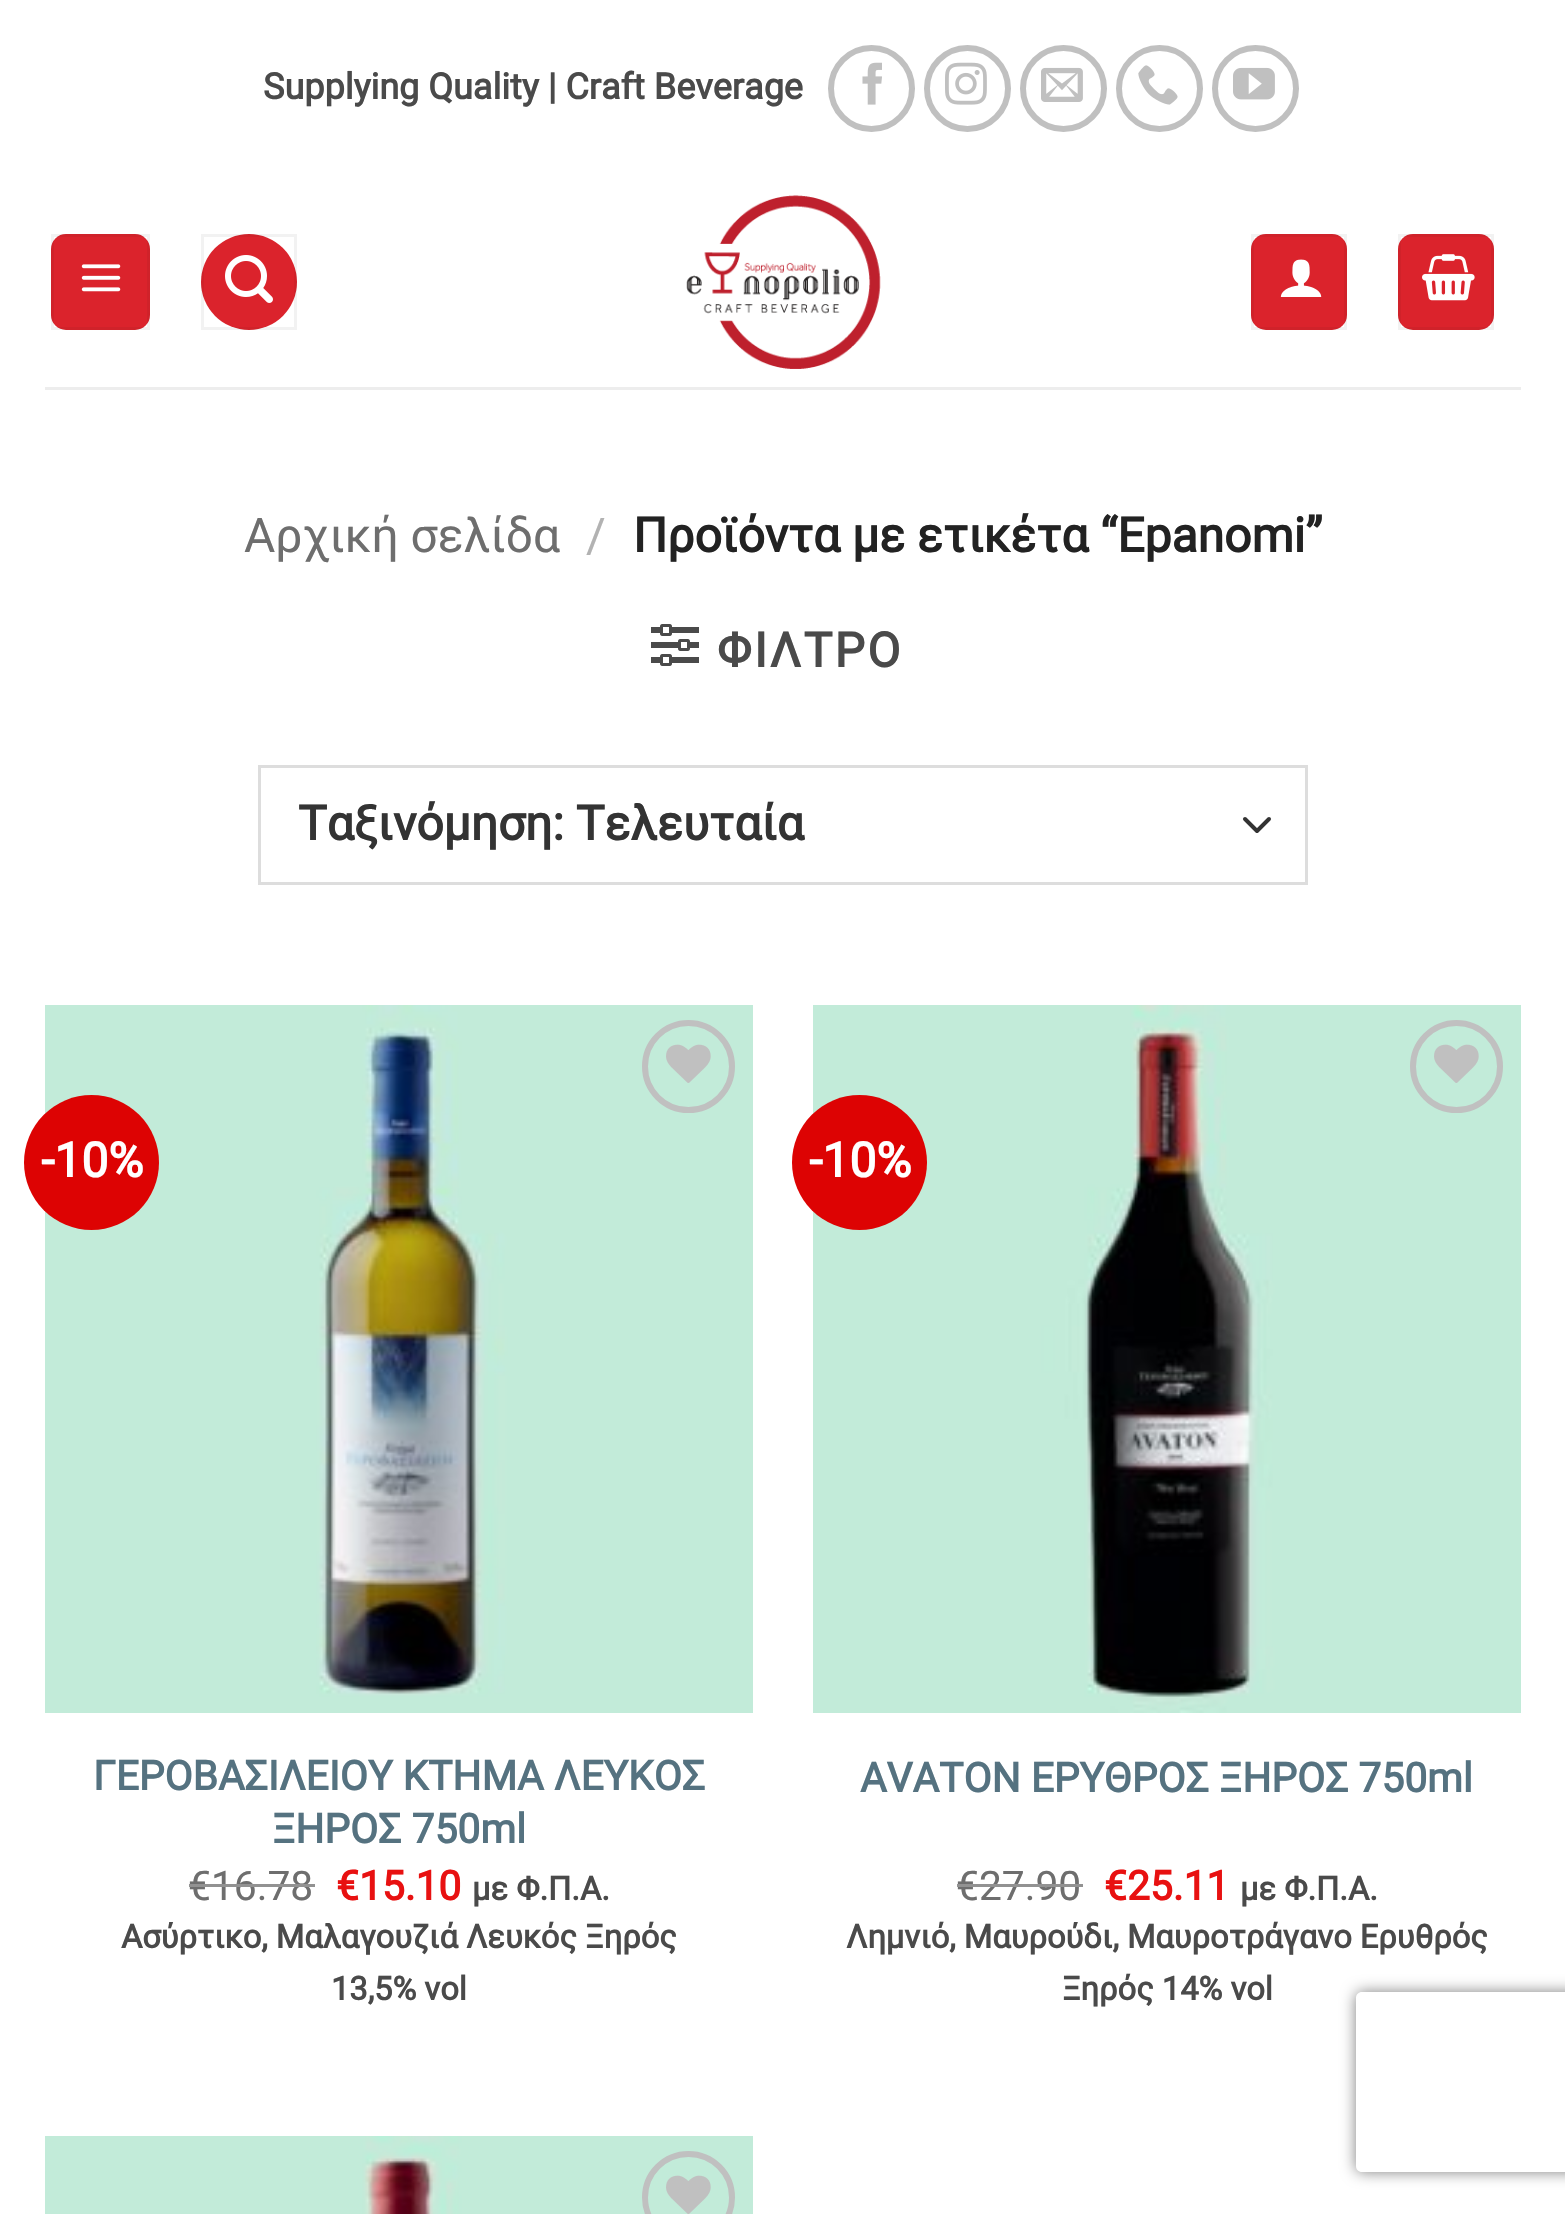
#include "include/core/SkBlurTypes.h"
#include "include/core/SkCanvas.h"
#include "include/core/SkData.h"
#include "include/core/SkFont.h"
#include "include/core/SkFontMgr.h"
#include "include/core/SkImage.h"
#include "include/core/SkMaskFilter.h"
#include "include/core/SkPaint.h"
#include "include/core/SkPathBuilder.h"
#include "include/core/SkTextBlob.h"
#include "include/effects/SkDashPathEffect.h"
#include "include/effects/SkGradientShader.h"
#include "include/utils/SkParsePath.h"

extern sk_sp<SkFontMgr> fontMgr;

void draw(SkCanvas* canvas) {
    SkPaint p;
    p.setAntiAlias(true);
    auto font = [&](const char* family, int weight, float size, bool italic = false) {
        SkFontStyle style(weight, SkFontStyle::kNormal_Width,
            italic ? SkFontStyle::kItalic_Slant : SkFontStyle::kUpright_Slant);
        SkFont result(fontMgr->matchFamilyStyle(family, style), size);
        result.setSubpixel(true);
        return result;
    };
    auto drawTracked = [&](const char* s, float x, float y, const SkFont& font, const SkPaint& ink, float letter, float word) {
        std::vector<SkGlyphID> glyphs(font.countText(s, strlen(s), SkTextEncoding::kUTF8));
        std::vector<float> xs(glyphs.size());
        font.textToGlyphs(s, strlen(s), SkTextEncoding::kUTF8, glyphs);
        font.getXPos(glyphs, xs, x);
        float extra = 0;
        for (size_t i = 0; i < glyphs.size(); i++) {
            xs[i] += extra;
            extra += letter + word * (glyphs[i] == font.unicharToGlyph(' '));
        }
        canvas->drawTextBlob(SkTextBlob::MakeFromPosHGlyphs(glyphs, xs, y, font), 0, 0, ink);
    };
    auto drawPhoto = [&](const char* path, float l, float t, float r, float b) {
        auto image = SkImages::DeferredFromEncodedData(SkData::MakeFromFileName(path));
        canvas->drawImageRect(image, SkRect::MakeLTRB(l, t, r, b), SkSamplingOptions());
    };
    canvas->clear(0xFFFFFFFF);
    auto font1 = font("Roboto", 700, 36);
    p.setColor(0xFF4A4A4A);
    canvas->drawString("Supplying Quality | Craft Beverage", 263, 99, font1, p);
    p.setStyle(SkPaint::kStroke_Style);
    p.setStrokeWidth(6);
    p.setColor(0xFFC0C0C0);
    canvas->drawCircle(871.5f, 88.5f, 40.5f, p);
    drawPhoto("media/1.png", 862, 62, 882, 105);
    canvas->drawCircle(967.5f, 88.5f, 40.5f, p);
    drawPhoto("media/2.png", 945, 62, 987, 105);
    canvas->drawCircle(1063.5f, 88.5f, 40.5f, p);
    drawPhoto("media/3.png", 1041, 67, 1083, 102);
    canvas->drawCircle(1159.5f, 88.5f, 40.5f, p);
    drawPhoto("media/4.png", 1138, 65, 1178, 105);
    canvas->drawCircle(1255.5f, 88.5f, 40.5f, p);
    drawPhoto("media/5.png", 1233, 67, 1275, 100);
    p.setStyle(SkPaint::kFill_Style);
    p.setColor(0xFFDB232C);
    canvas->drawRoundRect(SkRect::MakeLTRB(51, 234, 150, 330), 15, 15, p);
    p.setStyle(SkPaint::kStroke_Style);
    p.setStrokeWidth(3);
    p.setColor(0x0D000000);
    canvas->drawRect(SkRect::MakeLTRB(52.5f, 235.5f, 148.5f, 328.5f), p);
    drawPhoto("media/6.png", 81, 264, 121, 292);
    p.setStyle(SkPaint::kFill_Style);
    p.setColor(0xFFDB232C);
    canvas->drawCircle(249, 282, 48, p);
    p.setStyle(SkPaint::kStroke_Style);
    p.setColor(0x0D000000);
    canvas->drawRect(SkRect::MakeLTRB(202.5f, 235.5f, 295.5f, 328.5f), p);
    drawPhoto("media/7.png", 225, 255, 273, 303);
    drawPhoto("media/8.png", 686, 195, 881, 369);
    p.setStyle(SkPaint::kFill_Style);
    p.setColor(0xFFDB232C);
    canvas->drawRoundRect(SkRect::MakeLTRB(1251, 234, 1347, 330), 15, 15, p);
    p.setStyle(SkPaint::kStroke_Style);
    p.setColor(0x0D000000);
    canvas->drawRect(SkRect::MakeLTRB(1252.5f, 235.5f, 1345.5f, 328.5f), p);
    drawPhoto("media/9.png", 1280, 259, 1322, 297);
    p.setStyle(SkPaint::kFill_Style);
    p.setColor(0xFFDB232C);
    canvas->drawRoundRect(SkRect::MakeLTRB(1398, 234, 1494, 330), 15, 15, p);
    p.setStyle(SkPaint::kStroke_Style);
    p.setColor(0x0D000000);
    canvas->drawRect(SkRect::MakeLTRB(1399.5f, 235.5f, 1492.5f, 328.5f), p);
    drawPhoto("media/10.png", 1422, 254, 1475, 301);
    p.setStyle(SkPaint::kFill_Style);
    p.setColor(0xFFEDEDED);
    canvas->drawRect(SkRect::MakeLTRB(45, 387, 1521, 390), p);
    auto font2 = font("Roboto", 400, 48);
    p.setColor(0xFF6E6E6E);
    canvas->drawString("Αρχική σελίδα", 244, 552, font2, p);
    p.setColor(0xFFB2B2B2);
    canvas->drawString("/", 586, 552, font2, p);
    auto font3 = font("Roboto", 700, 48);
    p.setColor(0xFF222222);
    canvas->drawString("Προϊόντα με ετικέτα “Epanomi”", 633, 552, font3, p);
    drawPhoto("media/11.png", 651, 624, 699, 666);
    p.setColor(0xFF4A4A4A);
    drawTracked("ΦΙΛΤΡΟ", 717, 667, font3, p, 2.5f, 0);
    p.setStyle(SkPaint::kStroke_Style);
    p.setStrokeWidth(4);
    p.setStrokeCap(SkPaint::kRound_Cap);
    p.setStrokeJoin(SkPaint::kRound_Join);
    p.setColor(0xFF333333);
    canvas->drawPath(SkPathBuilder().moveTo(1245, 819).lineTo(1257, 831).lineTo(1269, 819).detach(), p);
    p.setStrokeWidth(3);
    p.setStrokeCap(SkPaint::kButt_Cap);
    p.setStrokeJoin(SkPaint::kMiter_Join);
    p.setColor(0xFFDDDDDD);
    canvas->drawRect(SkRect::MakeLTRB(259.5f, 766.5f, 1306.5f, 883.5f), p);
    p.setStyle(SkPaint::kFill_Style);
    p.setColor(0xFF333333);
    canvas->drawString("Ταξινόμηση: Τελευταία", 298, 840, font3, p);
    drawPhoto("media/12.png", 45, 1005, 753, 1713);
    p.setColor(0xFFDD0303);
    canvas->drawCircle(91.5f, 1162.5f, 67.5f, p);
    p.setColor(0xFFFFFFFF);
    canvas->drawString("-10%", 41, 1177, font3, p);
    p.setStyle(SkPaint::kStroke_Style);
    p.setStrokeWidth(6);
    p.setColor(0xFFC0C0C0);
    canvas->drawCircle(688.5f, 1066.5f, 43.5f, p);
    drawPhoto("media/13.png", 666, 1044, 711, 1083);
    auto font4 = font("Roboto", 700, 40.75f);
    p.setStyle(SkPaint::kFill_Style);
    p.setColor(0xFF557280);
    canvas->drawString("ΓΕΡΟΒΑΣΙΛΕΙΟΥ ΚΤΗΜΑ ΛΕΥΚΟΣ", 93, 1790, font4, p);
    canvas->drawString("ΞΗΡΟΣ 750ml", 272, 1843, font4, p);
    auto font5 = font("Roboto", 400, 40.75f);
    p.setColor(0xFF6E6E6E);
    canvas->drawString("€16.78", 188, 1900, font5, p);
    p.setColor(0xFF929292);
    canvas->drawRect(SkRect::MakeLTRB(189, 1884, 315, 1887), p);
    p.setColor(0xFFE81111);
    canvas->drawString("€15.10", 336, 1900, font4, p);
    auto font6 = font("Roboto", 700, 32.6f);
    p.setColor(0xFF4A4A4A);
    {
        const struct { const char* s; float x, y; } items[] = {
            {"με Φ.Π.Α.", 472, 1900},
            {"Ασύρτικο, Μαλαγουζιά Λευκός Ξηρός", 121, 1948},
            {"13,5% vol", 331, 2000},
        };
        for (auto [s, x, y] : items) {
            canvas->drawString(s, x, y, font6, p);
        }
    }
    drawPhoto("media/14.png", 813, 1005, 1521, 1713);
    p.setColor(0xFFDD0303);
    canvas->drawCircle(859.5f, 1162.5f, 67.5f, p);
    p.setColor(0xFFFFFFFF);
    canvas->drawString("-10%", 809, 1177, font3, p);
    p.setStyle(SkPaint::kStroke_Style);
    p.setColor(0xFFC0C0C0);
    canvas->drawCircle(1456.5f, 1066.5f, 43.5f, p);
    drawPhoto("media/13.png", 1434, 1044, 1479, 1083);
    p.setStyle(SkPaint::kFill_Style);
    p.setColor(0xFF557280);
    canvas->drawString("AVATON ΕΡΥΘΡΟΣ ΞΗΡΟΣ 750ml", 860, 1792, font4, p);
    p.setColor(0xFF6E6E6E);
    canvas->drawString("€27.90", 956, 1900, font5, p);
    p.setColor(0xFF929292);
    canvas->drawRect(SkRect::MakeLTRB(957, 1884, 1083, 1887), p);
    p.setColor(0xFFE81111);
    canvas->drawString("€25.11", 1104, 1900, font4, p);
    p.setColor(0xFF4A4A4A);
    {
        const struct { const char* s; float x, y; } items[] = {
            {"με Φ.Π.Α.", 1240, 1900},
            {"Λημνιό, Μαυρούδι, Μαυροτράγανο Ερυθρός", 846, 1948},
            {"Ξηρός 14% vol", 1062, 2000},
        };
        for (auto [s, x, y] : items) {
            canvas->drawString(s, x, y, font6, p);
        }
    }
    drawPhoto("media/15.png", 45, 2136, 753, 2214);
    p.setStyle(SkPaint::kStroke_Style);
    p.setColor(0xFFC0C0C0);
    canvas->drawCircle(688.5f, 2197.5f, 43.5f, p);
    drawPhoto("media/13.png", 666, 2175, 711, 2214);
    canvas->save();
    canvas->clipPath(SkPathBuilder(SkPathFillType::kEvenOdd).moveTo(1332, 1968).lineTo(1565, 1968).lineTo(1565, 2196).lineTo(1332, 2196).close().moveTo(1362, 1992).lineTo(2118, 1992).cubicTo(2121.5f, 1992, 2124, 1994.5f, 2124, 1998).lineTo(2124, 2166).cubicTo(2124, 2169.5f, 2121.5f, 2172, 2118, 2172).lineTo(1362, 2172).cubicTo(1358.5f, 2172, 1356, 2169.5f, 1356, 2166).lineTo(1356, 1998).cubicTo(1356, 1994.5f, 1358.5f, 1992, 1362, 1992).close().detach(), true);
    p.setStyle(SkPaint::kFill_Style);
    p.setColor(0xFF808080);
    p.setMaskFilter(SkMaskFilter::MakeBlur(kNormal_SkBlurStyle, 7.5f));
    canvas->drawRoundRect(SkRect::MakeLTRB(1356, 1992, 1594, 2172), 6, 6, p);
    p.setMaskFilter(nullptr);
    canvas->restore();
}
